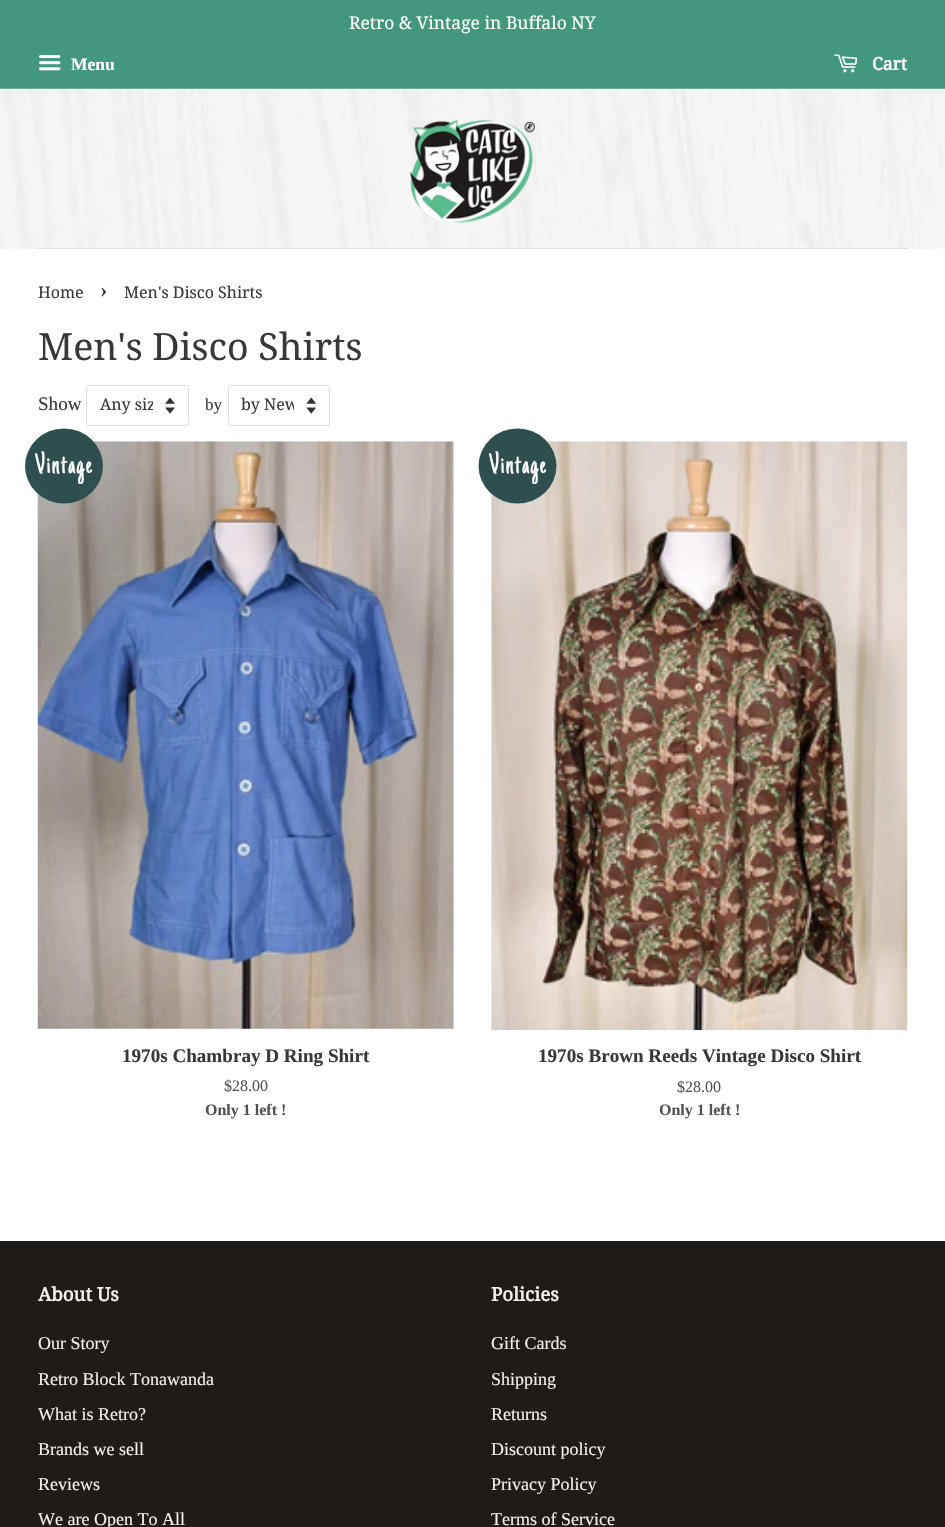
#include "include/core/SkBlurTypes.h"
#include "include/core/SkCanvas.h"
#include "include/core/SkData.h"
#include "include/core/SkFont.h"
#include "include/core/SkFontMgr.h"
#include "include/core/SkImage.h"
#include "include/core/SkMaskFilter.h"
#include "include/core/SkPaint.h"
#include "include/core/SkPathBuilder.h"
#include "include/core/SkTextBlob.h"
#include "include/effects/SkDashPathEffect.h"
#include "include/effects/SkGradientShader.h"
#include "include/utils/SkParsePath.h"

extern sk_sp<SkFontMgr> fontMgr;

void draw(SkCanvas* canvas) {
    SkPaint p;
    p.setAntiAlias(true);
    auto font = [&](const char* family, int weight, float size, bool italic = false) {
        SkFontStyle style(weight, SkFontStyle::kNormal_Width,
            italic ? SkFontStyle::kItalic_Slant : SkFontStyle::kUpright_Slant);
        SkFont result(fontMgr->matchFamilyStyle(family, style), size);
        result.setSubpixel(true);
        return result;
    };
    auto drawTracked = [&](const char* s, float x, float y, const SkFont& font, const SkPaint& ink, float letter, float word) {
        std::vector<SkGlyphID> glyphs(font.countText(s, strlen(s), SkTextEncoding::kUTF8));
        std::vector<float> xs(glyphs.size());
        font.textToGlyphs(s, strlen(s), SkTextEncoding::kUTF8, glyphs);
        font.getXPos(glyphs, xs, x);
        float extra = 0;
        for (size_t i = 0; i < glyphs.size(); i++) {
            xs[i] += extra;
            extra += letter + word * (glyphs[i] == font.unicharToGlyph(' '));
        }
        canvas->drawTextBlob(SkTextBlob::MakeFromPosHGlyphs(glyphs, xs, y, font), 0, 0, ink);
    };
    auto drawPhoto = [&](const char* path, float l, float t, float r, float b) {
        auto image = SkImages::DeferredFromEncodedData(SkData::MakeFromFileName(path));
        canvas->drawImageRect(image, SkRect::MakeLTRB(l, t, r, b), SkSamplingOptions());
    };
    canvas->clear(0xFFFFFFFF);
    p.setColor(0xFF42977E);
    canvas->drawRect(SkRect::MakeLTRB(0, 0, 945, 89), p);
    auto font1 = font("Droid Serif", 400, 17.5f);
    p.setColor(0xFFFFFFFF);
    canvas->drawString("Retro & Vintage in Buffalo NY", 349, 29, font1, p);
    drawPhoto("media/1.png", 39, 55, 61, 71);
    auto font2 = font("Liberation Serif", 700, 17.5f);
    canvas->drawString("Menu", 71, 70, font2, p);
    drawPhoto("media/2.png", 834, 54, 858, 73);
    auto font3 = font("Droid Serif", 700, 17.5f);
    canvas->drawString("Cart", 872, 70, font3, p);
    drawPhoto("media/3.png", 0, 88, 945, 249);
    p.setColor(0xFFDEDEDE);
    canvas->drawRect(SkRect::MakeLTRB(38, 248, 908, 249), p);
    drawPhoto("media/4.png", 410, 120, 535, 223);
    auto font4 = font("Droid Serif", 400, 16);
    p.setColor(0xFF383838);
    canvas->drawString("Home", 38, 298, font4, p);
    auto font5 = font("Droid Serif", 400, 22);
    canvas->drawString("›", 100, 298, font5, p);
    canvas->drawString("Men's Disco Shirts", 124, 298, font4, p);
    auto font6 = font("Droid Serif", 400, 37.5f);
    canvas->drawString("Men's Disco Shirts", 38, 360, font6, p);
    auto font7 = font("Liberation Serif", 400, 19.1f);
    canvas->drawString("Show", 38, 410, font7, p);
    drawPhoto("media/5.png", 165, 398, 175, 414);
    p.setStyle(SkPaint::kStroke_Style);
    p.setStrokeWidth(1);
    p.setColor(0xFFDEDEDE);
    canvas->drawRoundRect(SkRect::MakeLTRB(86.5f, 385.5f, 188.5f, 425.5f), 2, 2, p);
    canvas->save();
    canvas->clipRect(SkRect::MakeLTRB(100, 394, 153, 418));
    p.setStyle(SkPaint::kFill_Style);
    p.setColor(0xFF383838);
    canvas->drawString("Any siz", 100, 410, font4, p);
    canvas->restore();
    auto font8 = font("Liberation Serif", 400, 17);
    canvas->drawString("by", 205, 410, font8, p);
    drawPhoto("media/6.png", 306, 398, 316, 414);
    p.setStyle(SkPaint::kStroke_Style);
    p.setColor(0xFFDEDEDE);
    canvas->drawRoundRect(SkRect::MakeLTRB(228.5f, 385.5f, 329.5f, 425.5f), 2, 2, p);
    canvas->save();
    canvas->clipRect(SkRect::MakeLTRB(241, 394, 294, 418));
    p.setStyle(SkPaint::kFill_Style);
    p.setColor(0xFF383838);
    canvas->drawString("by New", 241, 410, font4, p);
    canvas->restore();
    drawPhoto("media/7.png", 37, 441, 454, 1029);
    p.setColor(0xFF2F4F4F);
    canvas->drawOval(SkRect::MakeLTRB(25, 428.5f, 103, 503.5f), p);
    auto font9 = font("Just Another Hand", 400, 30);
    p.setColor(0xFFFFFFFF);
    drawTracked("Vintage", 35, 473, font9, p, 1.25f, 0);
    auto font10 = font("Liberation Serif", 700, 19.1f);
    p.setColor(0xFF383838);
    canvas->drawString("1970s Chambray D Ring Shirt", 122, 1062, font10, p);
    auto font11 = font("Liberation Serif", 400, 16);
    p.setColor(0xFF525252);
    canvas->drawString("$28.00", 224, 1091, font11, p);
    auto font12 = font("Liberation Serif", 700, 16);
    canvas->drawString("Only 1 left !", 205, 1115, font12, p);
    drawPhoto("media/8.png", 491, 441, 908, 1030);
    p.setColor(0xFF2F4F4F);
    canvas->drawOval(SkRect::MakeLTRB(478.5f, 428.5f, 556.5f, 503.5f), p);
    p.setColor(0xFFFFFFFF);
    drawTracked("Vintage", 489, 473, font9, p, 1.25f, 0);
    p.setColor(0xFF383838);
    canvas->drawString("1970s Brown Reeds Vintage Disco Shirt", 538, 1062, font10, p);
    p.setColor(0xFF525252);
    canvas->drawString("$28.00", 677, 1092, font11, p);
    canvas->drawString("Only 1 left !", 659, 1115, font12, p);
    p.setColor(0xFF1E1B19);
    canvas->drawRect(SkRect::MakeLTRB(0, 1241, 945, 1527), p);
    auto font13 = font("Droid Serif", 700, 18.75f);
    p.setColor(0xFFF2F0EE);
    canvas->drawString("About Us", 38, 1301, font13, p);
    auto font14 = font("Liberation Serif", 400, 18);
    {
        const struct { const char* s; float x, y; } items[] = {
            {"Our Story", 38, 1349},
            {"Retro Block Tonawanda", 38, 1385},
            {"What is Retro?", 38, 1420},
            {"Brands we sell", 38, 1455},
            {"Reviews", 38, 1490},
            {"We are Open To All", 38, 1525},
        };
        for (auto [s, x, y] : items) {
            canvas->drawString(s, x, y, font14, p);
        }
    }
    canvas->drawString("Policies", 491, 1301, font13, p);
    {
        const struct { const char* s; float x, y; } items[] = {
            {"Gift Cards", 491, 1349},
            {"Shipping", 491, 1385},
            {"Returns", 491, 1420},
            {"Discount policy", 491, 1455},
            {"Privacy Policy", 491, 1490},
            {"Terms of Service", 491, 1525},
        };
        for (auto [s, x, y] : items) {
            canvas->drawString(s, x, y, font14, p);
        }
    }
}
